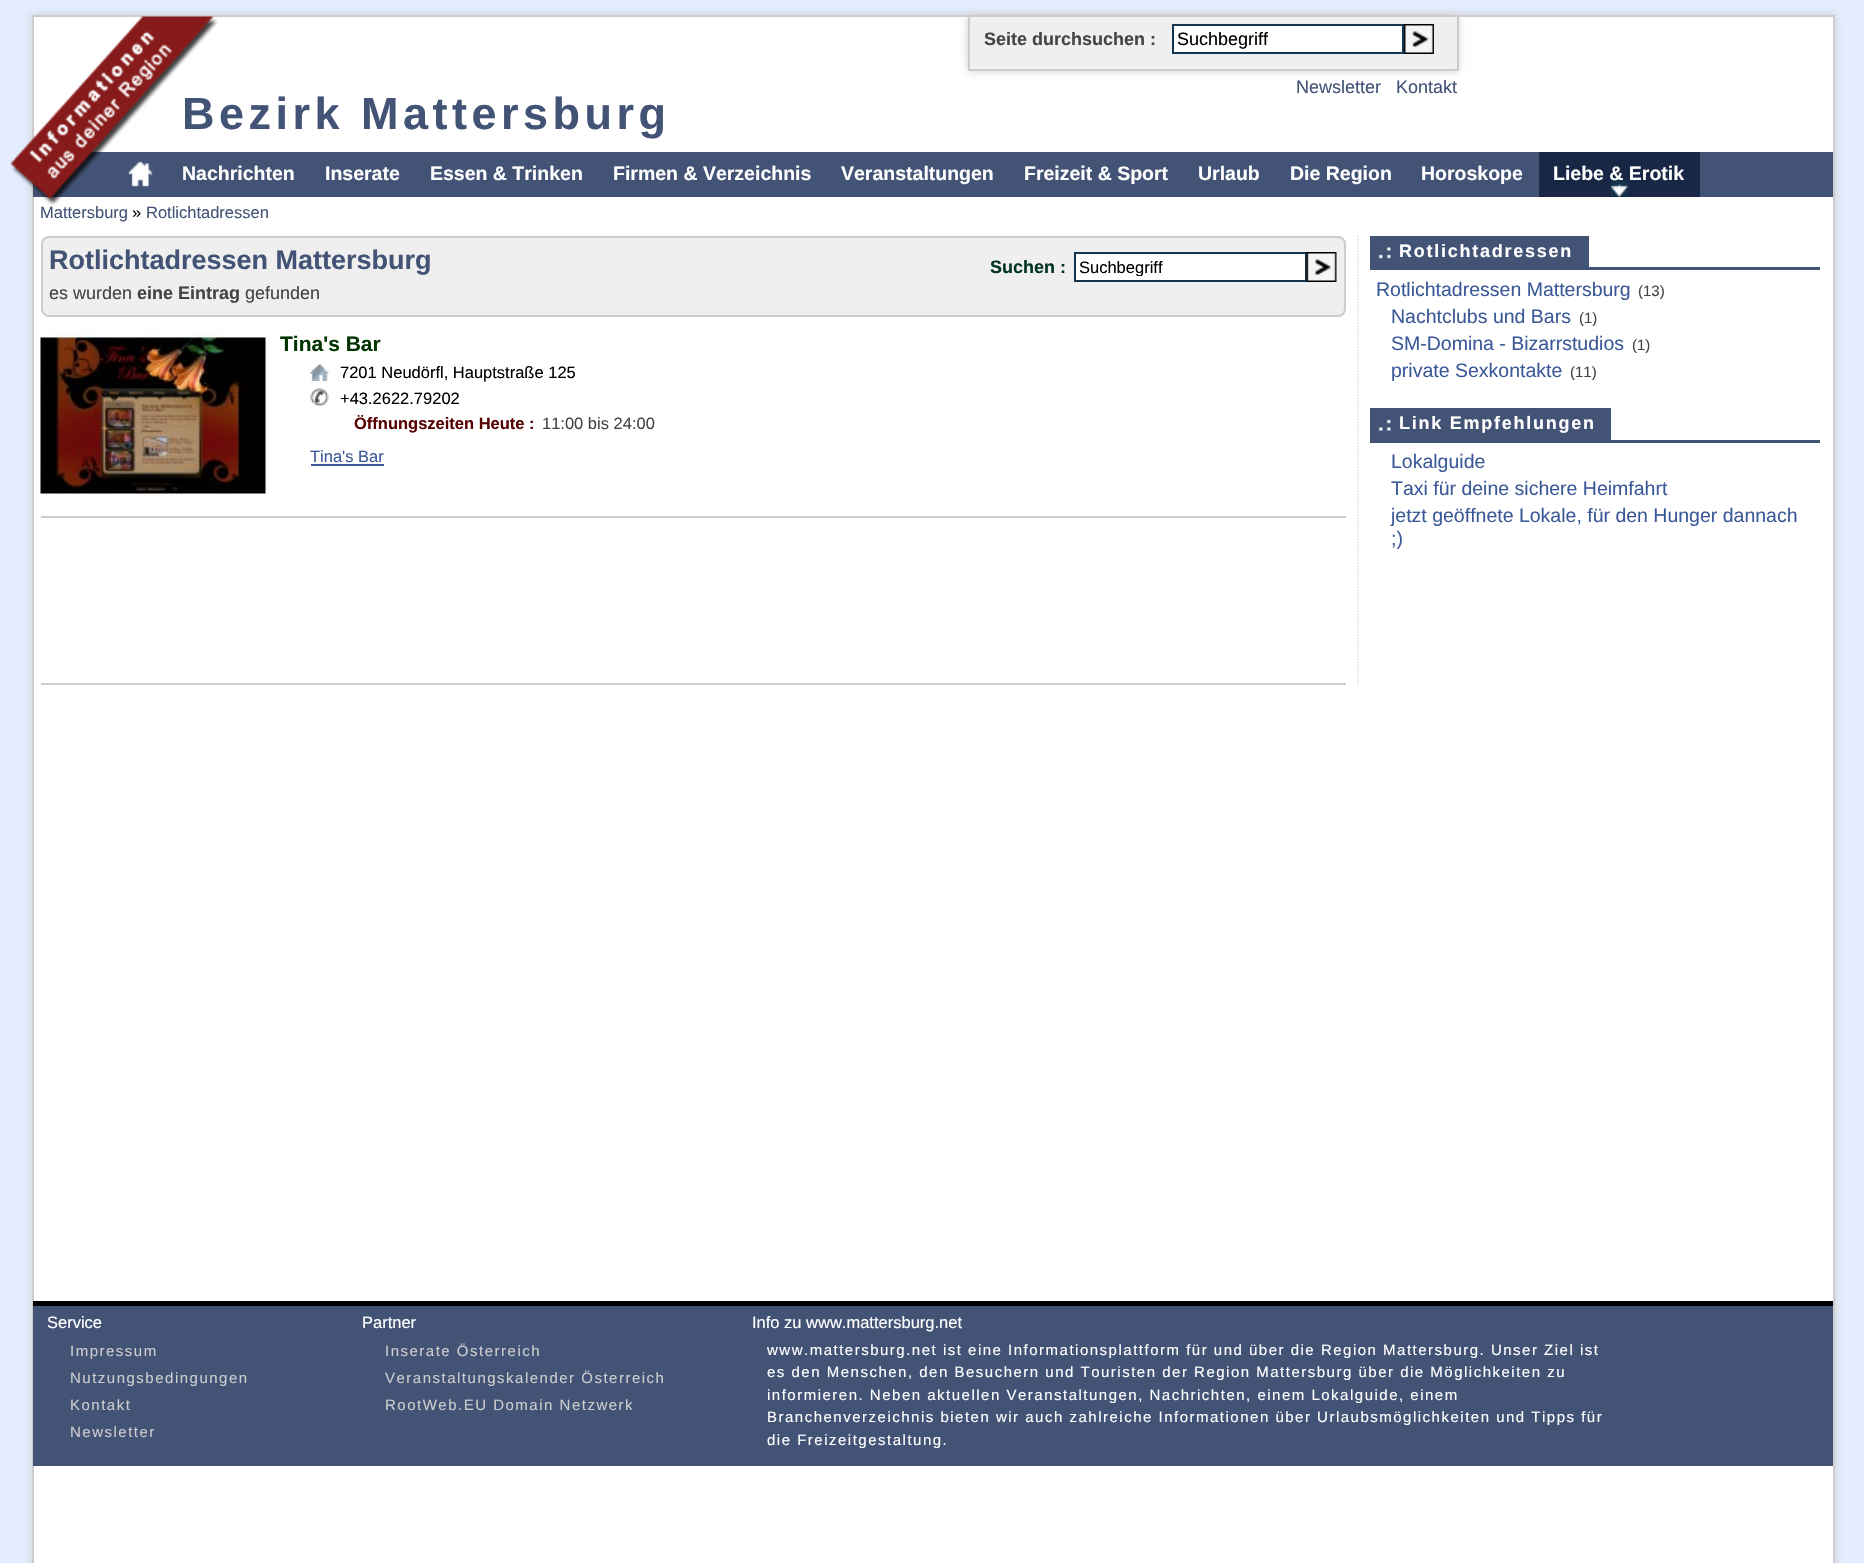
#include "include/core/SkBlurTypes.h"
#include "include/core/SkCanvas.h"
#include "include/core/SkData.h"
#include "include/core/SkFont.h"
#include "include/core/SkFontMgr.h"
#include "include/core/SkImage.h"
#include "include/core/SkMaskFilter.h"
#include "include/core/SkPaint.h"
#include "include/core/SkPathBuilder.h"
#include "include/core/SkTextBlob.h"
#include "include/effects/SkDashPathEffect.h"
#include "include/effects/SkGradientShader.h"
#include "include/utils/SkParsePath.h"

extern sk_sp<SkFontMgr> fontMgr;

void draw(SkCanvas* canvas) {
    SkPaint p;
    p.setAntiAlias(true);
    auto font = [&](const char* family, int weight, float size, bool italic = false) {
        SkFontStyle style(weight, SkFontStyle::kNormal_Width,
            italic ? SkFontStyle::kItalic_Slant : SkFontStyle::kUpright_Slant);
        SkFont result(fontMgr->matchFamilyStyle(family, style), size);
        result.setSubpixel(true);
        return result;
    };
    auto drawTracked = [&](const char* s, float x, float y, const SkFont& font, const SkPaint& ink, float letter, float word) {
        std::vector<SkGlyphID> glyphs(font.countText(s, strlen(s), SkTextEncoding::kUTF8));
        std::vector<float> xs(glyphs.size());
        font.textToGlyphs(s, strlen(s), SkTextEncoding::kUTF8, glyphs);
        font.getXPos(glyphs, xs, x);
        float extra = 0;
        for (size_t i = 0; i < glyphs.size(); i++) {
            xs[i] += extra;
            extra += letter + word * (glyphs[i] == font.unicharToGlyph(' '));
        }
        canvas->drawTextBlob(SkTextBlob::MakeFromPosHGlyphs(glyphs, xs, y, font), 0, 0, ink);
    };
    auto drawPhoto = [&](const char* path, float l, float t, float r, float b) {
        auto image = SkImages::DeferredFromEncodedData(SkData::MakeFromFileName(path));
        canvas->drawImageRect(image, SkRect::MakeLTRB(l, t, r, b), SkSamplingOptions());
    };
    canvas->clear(0xFFE4EDFF);
    p.setColor(0xFFCCCCCC);
    p.setMaskFilter(SkMaskFilter::MakeBlur(kNormal_SkBlurStyle, 4));
    canvas->drawRect(SkRect::MakeLTRB(32, 15, 1835, 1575), p);
    p.setMaskFilter(nullptr);
    p.setColor(0xFFFFFFFF);
    canvas->drawRect(SkRect::MakeLTRB(33, 16, 1834, 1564), p);
    p.setStyle(SkPaint::kStroke_Style);
    p.setStrokeWidth(2);
    p.setColor(0xFFCCCCCC);
    canvas->drawRect(SkRect::MakeLTRB(33, 16, 1834, 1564), p);
    auto font1 = font("Liberation Sans", 700, 45);
    p.setStyle(SkPaint::kFill_Style);
    p.setColor(0xFF425376);
    drawTracked("Bezirk Mattersburg", 182, 129, font1, p, 4.5f, 0);
    canvas->drawRect(SkRect::MakeLTRB(33, 152, 1833, 197), p);
    drawPhoto("media/3.png", 128, 161, 154, 187);
    auto font2 = font("Liberation Sans", 700, 19.5f);
    p.setColor(0xFFFFFFFF);
    canvas->drawString("Nachrichten", 182, 180, font2, p);
    drawPhoto("media/1.png", 10, 16, 218, 206);
    p.setColor(0xFFCCCCCC);
    p.setMaskFilter(SkMaskFilter::MakeBlur(kNormal_SkBlurStyle, 4));
    canvas->drawRect(SkRect::MakeLTRB(968, 17, 1458, 71), p);
    p.setMaskFilter(nullptr);
    {
        const struct { float l, t, r, b; SkColor color; } items[] = {
            {970, 17, 1457, 69, 0xFFEFEFEF},
            {1457, 17, 1459, 71, 0xFFCCCCCC},
            {968, 69, 1458, 71, 0xFFCCCCCC},
            {968, 17, 970, 71, 0xFFCCCCCC},
        };
        for (auto [l, t, r, b, color] : items) {
            p.setColor(color);
            canvas->drawRect(SkRect::MakeLTRB(l, t, r, b), p);
        }
    }
    auto font3 = font("Liberation Sans", 700, 18);
    p.setColor(0xFF444444);
    canvas->drawString("Seite durchsuchen :", 984, 45, font3, p);
    p.setColor(0xFFFFFFFF);
    canvas->drawRect(SkRect::MakeLTRB(1173, 25, 1403, 53), p);
    p.setStyle(SkPaint::kStroke_Style);
    p.setColor(0xFF16344B);
    canvas->drawRect(SkRect::MakeLTRB(1173, 25, 1403, 53), p);
    auto font4 = font("Liberation Sans", 400, 18);
    p.setStyle(SkPaint::kFill_Style);
    p.setColor(0xFF000000);
    canvas->drawString("Suchbegriff", 1177, 45, font4, p);
    drawPhoto("media/2.png", 1404, 24, 1434, 54);
    p.setColor(0xFF425376);
    canvas->drawString("Newsletter", 1296, 93, font4, p);
    canvas->drawString("Kontakt", 1396, 93, font4, p);
    p.setColor(0xFFFFFFFF);
    {
        const struct { const char* s; float x, y; } items[] = {
            {"Inserate", 325, 180},
            {"Essen & Trinken", 430, 180},
            {"Firmen & Verzeichnis", 613, 180},
            {"Veranstaltungen", 841, 180},
            {"Freizeit & Sport", 1024, 180},
            {"Urlaub", 1198, 180},
            {"Die Region", 1290, 180},
            {"Horoskope", 1421, 180},
        };
        for (auto [s, x, y] : items) {
            canvas->drawString(s, x, y, font2, p);
        }
    }
    p.setColor(0xFF182745);
    canvas->drawRect(SkRect::MakeLTRB(1539, 152, 1700, 197), p);
    drawPhoto("media/4.png", 1611, 180, 1628, 197);
    p.setColor(0xFFFFFFFF);
    canvas->drawString("Liebe & Erotik", 1553, 180, font2, p);
    auto font5 = font("Liberation Sans", 400, 16.5f);
    p.setColor(0xFF425376);
    canvas->drawString("Mattersburg", 40, 218, font5, p);
    p.setColor(0xFF000000);
    canvas->drawString("»", 132, 218, font5, p);
    p.setColor(0xFF425376);
    canvas->drawString("Rotlichtadressen", 146, 218, font5, p);
    p.setColor(0xFFEFEFEF);
    canvas->drawRoundRect(SkRect::MakeLTRB(42, 237, 1345, 316), 7, 7, p);
    p.setStyle(SkPaint::kStroke_Style);
    p.setColor(0xFFCCCCCC);
    canvas->drawRoundRect(SkRect::MakeLTRB(42, 237, 1345, 316), 7, 7, p);
    auto font6 = font("Liberation Sans", 700, 27);
    p.setStyle(SkPaint::kFill_Style);
    p.setColor(0xFF425376);
    canvas->drawString("Rotlichtadressen Mattersburg", 49, 269, font6, p);
    p.setColor(0xFF444444);
    canvas->drawString("es wurden", 49, 299, font4, p);
    canvas->drawString("eine Eintrag", 137, 299, font3, p);
    canvas->drawString("gefunden", 245, 299, font4, p);
    p.setColor(0xFF003320);
    canvas->drawString("Suchen :", 990, 273, font3, p);
    p.setColor(0xFFFFFFFF);
    canvas->drawRect(SkRect::MakeLTRB(1075, 253, 1306, 281), p);
    p.setStyle(SkPaint::kStroke_Style);
    p.setColor(0xFF16344B);
    canvas->drawRect(SkRect::MakeLTRB(1075, 253, 1306, 281), p);
    canvas->save();
    canvas->clipRect(SkRect::MakeLTRB(1080, 258, 1305, 276));
    p.setStyle(SkPaint::kFill_Style);
    p.setColor(0xFF000000);
    canvas->drawString("Suchbegriff", 1079, 273, font5, p);
    canvas->restore();
    drawPhoto("media/5.png", 1306, 252, 1337, 282);
    p.setColor(0xFFCCCCCC);
    canvas->drawRect(SkRect::MakeLTRB(41, 516, 1346, 518), p);
    drawPhoto("media/6.png", 40, 331, 266, 498);
    auto font7 = font("Liberation Sans", 700, 21);
    p.setColor(0xFF003300);
    canvas->drawString("Tina's Bar", 280, 351, font7, p);
    drawPhoto("media/7.png", 310, 364, 329, 381);
    p.setColor(0xFF000000);
    canvas->drawString("7201 Neudörfl, Hauptstraße 125", 340, 378, font5, p);
    drawPhoto("media/8.png", 310, 388, 329, 407);
    canvas->drawString("+43.2622.79202", 340, 404, font5, p);
    auto font8 = font("Liberation Sans", 700, 16.5f);
    p.setColor(0xFF560000);
    canvas->drawString("Öffnungszeiten Heute :", 354, 429, font8, p);
    p.setColor(0xFF444444);
    canvas->drawString("11:00 bis 24:00", 542, 429, font5, p);
    p.setColor(0xFF3B5998);
    canvas->drawString("Tina's Bar", 310, 462, font5, p);
    canvas->drawRect(SkRect::MakeLTRB(311, 464, 384, 466), p);
    p.setColor(0xFFCCCCCC);
    canvas->drawRect(SkRect::MakeLTRB(41, 683, 1346, 685), p);
    p.setStyle(SkPaint::kStroke_Style);
    p.setStrokeWidth(1.5f);
    p.setColor(0xFFDDDDDD);
    p.setPathEffect(SkDashPathEffect::Make({{1.5f, 1.5f}}, 0));
    canvas->drawPath(SkPathBuilder().moveTo(1358, 235.5f).lineTo(1358, 684).detach(), p);
    p.setPathEffect(nullptr);
    p.setStyle(SkPaint::kFill_Style);
    p.setColor(0xFF425376);
    canvas->drawRect(SkRect::MakeLTRB(1589, 267, 1820, 270), p);
    canvas->drawRect(SkRect::MakeLTRB(1370, 236, 1589, 270), p);
    drawPhoto("media/9.png", 1378, 247, 1391, 259);
    p.setColor(0xFFFFFFFF);
    drawTracked("Rotlichtadressen", 1399, 257, font3, p, 1.75f, 0);
    auto font9 = font("Liberation Sans", 400, 19.5f);
    p.setColor(0xFF3B5998);
    canvas->drawString("Rotlichtadressen Mattersburg", 1376, 296, font9, p);
    auto font10 = font("Liberation Sans", 400, 15);
    p.setColor(0xFF444444);
    canvas->drawString("(13)", 1638, 296, font10, p);
    p.setColor(0xFF3B5998);
    canvas->drawString("Nachtclubs und Bars", 1391, 323, font9, p);
    p.setColor(0xFF444444);
    canvas->drawString("(1)", 1579, 323, font10, p);
    p.setColor(0xFF3B5998);
    canvas->drawString("SM-Domina - Bizarrstudios", 1391, 350, font9, p);
    p.setColor(0xFF444444);
    canvas->drawString("(1)", 1632, 350, font10, p);
    p.setColor(0xFF3B5998);
    canvas->drawString("private Sexkontakte", 1391, 377, font9, p);
    p.setColor(0xFF444444);
    canvas->drawString("(11)", 1570, 377, font10, p);
    p.setColor(0xFF425376);
    canvas->drawRect(SkRect::MakeLTRB(1611, 440, 1820, 443), p);
    canvas->drawRect(SkRect::MakeLTRB(1370, 408, 1611, 443), p);
    drawPhoto("media/10.png", 1378, 419, 1391, 431);
    p.setColor(0xFFFFFFFF);
    drawTracked("Link Empfehlungen", 1399, 429, font3, p, 1.75f, 0);
    p.setColor(0xFF3B5998);
    {
        const struct { const char* s; float x, y; } items[] = {
            {"Lokalguide", 1391, 468},
            {"Taxi für deine sichere Heimfahrt", 1391, 495},
            {"jetzt geöffnete Lokale, für den Hunger dannach", 1391, 522},
            {";)", 1391, 545},
        };
        for (auto [s, x, y] : items) {
            canvas->drawString(s, x, y, font9, p);
        }
    }
    p.setColor(0xFF425376);
    canvas->drawRect(SkRect::MakeLTRB(33, 1306, 1833, 1466), p);
    p.setColor(0xFF000000);
    canvas->drawRect(SkRect::MakeLTRB(33, 1301, 1833, 1306), p);
    p.setColor(0xFFFFFFFF);
    canvas->drawString("Service", 47, 1328, font5, p);
    p.setColor(0xFFCCCCCC);
    {
        const struct { const char* s; float x, y; } items[] = {
            {"Impressum", 70, 1356},
            {"Nutzungsbedingungen", 70, 1383},
            {"Kontakt", 70, 1410},
            {"Newsletter", 70, 1437},
        };
        for (auto [s, x, y] : items) {
            drawTracked(s, x, y, font10, p, 1.5f, 0);
        }
    }
    p.setColor(0xFFFFFFFF);
    canvas->drawString("Partner", 362, 1328, font5, p);
    p.setColor(0xFFCCCCCC);
    {
        const struct { const char* s; float x, y; } items[] = {
            {"Inserate Österreich", 385, 1356},
            {"Veranstaltungskalender Österreich", 385, 1383},
            {"RootWeb.EU Domain Netzwerk", 385, 1410},
        };
        for (auto [s, x, y] : items) {
            drawTracked(s, x, y, font10, p, 1.5f, 0);
        }
    }
    p.setColor(0xFFFFFFFF);
    canvas->drawString("Info zu www.mattersburg.net", 752, 1328, font5, p);
    {
        const struct { const char* s; float x, y; } items[] = {
            {"www.mattersburg.net ist eine Informationsplattform für und über die Region Mattersburg. Unser Ziel ist", 767, 1355},
            {"es den Menschen, den Besuchern und Touristen der Region Mattersburg über die Möglichkeiten zu", 767, 1377},
            {"informieren. Neben aktuellen Veranstaltungen, Nachrichten, einem Lokalguide, einem", 767, 1400},
            {"Branchenverzeichnis bieten wir auch zahlreiche Informationen über Urlaubsmöglichkeiten und Tipps für", 767, 1422},
            {"die Freizeitgestaltung.", 767, 1445},
        };
        for (auto [s, x, y] : items) {
            drawTracked(s, x, y, font10, p, 1.5f, 0);
        }
    }
}
